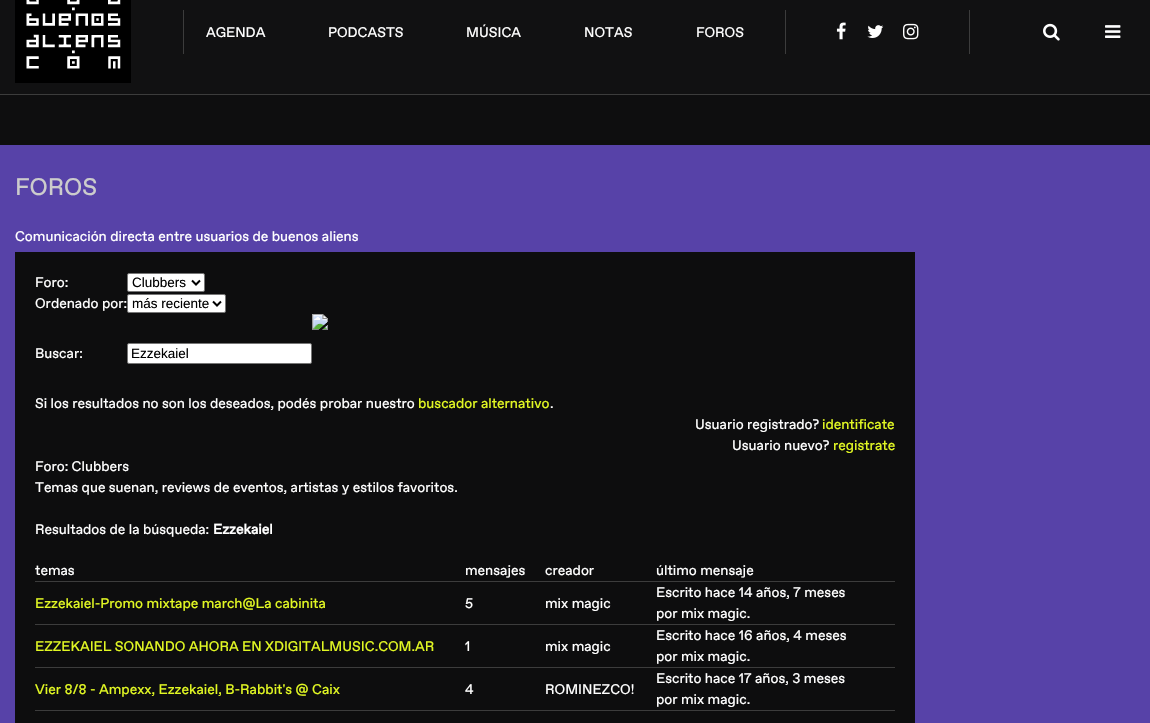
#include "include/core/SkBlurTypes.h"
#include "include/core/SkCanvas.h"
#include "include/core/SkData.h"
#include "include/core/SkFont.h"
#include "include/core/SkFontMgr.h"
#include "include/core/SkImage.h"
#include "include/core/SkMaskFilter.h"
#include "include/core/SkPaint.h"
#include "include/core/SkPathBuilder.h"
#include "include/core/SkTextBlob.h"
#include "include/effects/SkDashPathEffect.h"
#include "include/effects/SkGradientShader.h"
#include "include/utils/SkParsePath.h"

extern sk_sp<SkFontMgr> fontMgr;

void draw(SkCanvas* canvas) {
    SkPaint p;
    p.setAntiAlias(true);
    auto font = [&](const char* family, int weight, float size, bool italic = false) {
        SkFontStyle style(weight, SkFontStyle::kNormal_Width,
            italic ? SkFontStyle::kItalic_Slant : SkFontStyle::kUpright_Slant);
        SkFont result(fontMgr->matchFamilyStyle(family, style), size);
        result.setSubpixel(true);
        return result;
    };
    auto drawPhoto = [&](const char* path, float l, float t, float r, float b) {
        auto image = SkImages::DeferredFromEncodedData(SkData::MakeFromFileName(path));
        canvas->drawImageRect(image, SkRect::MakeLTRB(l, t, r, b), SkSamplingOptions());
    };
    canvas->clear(0xFF0E0E0F);
    p.setColor(0xFF111112);
    canvas->drawRect(SkRect::MakeLTRB(0, 0, 1150, 94), p);
    p.setColor(0xFF3C3C3C);
    canvas->drawRect(SkRect::MakeLTRB(0, 94, 1150, 95), p);
    drawPhoto("media/1.png", 15, 0, 131, 83);
    canvas->drawRect(SkRect::MakeLTRB(785, 10, 786, 54), p);
    canvas->drawRect(SkRect::MakeLTRB(183, 10, 184, 54), p);
    auto font1 = font("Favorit", 400, 14);
    p.setColor(0xFFFFFFFF);
    {
        const struct { const char* s; float x, y; } items[] = {
            {"AGENDA", 206, 37},
            {"PODCASTS", 328, 37},
            {"MÚSICA", 466, 37},
            {"NOTAS", 584, 37},
            {"FOROS", 696, 37},
        };
        for (auto [s, x, y] : items) {
            canvas->drawString(s, x, y, font1, p);
        }
    }
    drawPhoto("media/2.png", 836, 22, 846, 40);
    drawPhoto("media/3.png", 867, 25, 884, 38);
    drawPhoto("media/4.png", 903, 23, 919, 40);
    p.setColor(0xFF3C3C3C);
    canvas->drawRect(SkRect::MakeLTRB(969, 10, 970, 54), p);
    drawPhoto("media/5.png", 1043, 23, 1060, 41);
    drawPhoto("media/6.png", 1105, 25, 1121, 38);
    p.setColor(0xFF5742A8);
    canvas->drawRect(SkRect::MakeLTRB(0, 145, 1150, 723), p);
    auto font2 = font("Favorit", 400, 24);
    p.setColor(0xFFCCCCCC);
    canvas->drawString("FOROS", 15, 195, font2, p);
    p.setColor(0xFFFFFFFF);
    canvas->drawString("Comunicación directa entre usuarios de buenos aliens", 15, 241, font1, p);
    p.setColor(0xFF0D0D0E);
    canvas->drawRect(SkRect::MakeLTRB(15, 252, 915, 723), p);
    p.setColor(0xFFFFFFFF);
    canvas->drawString("Foro:", 35, 287, font1, p);
    canvas->drawRoundRect(SkRect::MakeLTRB(127.5f, 273.5f, 204.5f, 291.5f), 1.5f, 1.5f, p);
    p.setStyle(SkPaint::kStroke_Style);
    p.setStrokeWidth(1);
    p.setColor(0xFF767676);
    canvas->drawRoundRect(SkRect::MakeLTRB(127.5f, 273.5f, 204.5f, 291.5f), 1.5f, 1.5f, p);
    p.setStrokeWidth(2);
    p.setColor(0xFF000000);
    canvas->drawPath(SkPathBuilder().moveTo(192, 280.5f).lineTo(196, 284.5f).lineTo(200, 280.5f).detach(), p);
    auto font3 = font("Liberation Sans", 400, 13.5f);
    p.setStyle(SkPaint::kFill_Style);
    canvas->drawString("Clubbers", 132, 287, font3, p);
    p.setColor(0xFFFFFFFF);
    canvas->drawString("Ordenado por:", 35, 308, font1, p);
    canvas->drawRoundRect(SkRect::MakeLTRB(127.5f, 294.5f, 225.5f, 312.5f), 1.5f, 1.5f, p);
    p.setStyle(SkPaint::kStroke_Style);
    p.setStrokeWidth(1);
    p.setColor(0xFF767676);
    canvas->drawRoundRect(SkRect::MakeLTRB(127.5f, 294.5f, 225.5f, 312.5f), 1.5f, 1.5f, p);
    p.setStrokeWidth(2);
    p.setColor(0xFF000000);
    canvas->drawPath(SkPathBuilder().moveTo(213, 301.5f).lineTo(217, 305.5f).lineTo(221, 301.5f).detach(), p);
    p.setStyle(SkPaint::kFill_Style);
    canvas->drawString("más reciente", 132, 308, font3, p);
    drawPhoto("media/7.png", 312, 314, 328, 330);
    p.setColor(0xFFFFFFFF);
    canvas->drawString("Buscar:", 35, 358, font1, p);
    canvas->drawRoundRect(SkRect::MakeLTRB(127.5f, 343.5f, 311.5f, 363.5f), 1.5f, 1.5f, p);
    p.setStyle(SkPaint::kStroke_Style);
    p.setStrokeWidth(1);
    p.setColor(0xFF767676);
    canvas->drawRoundRect(SkRect::MakeLTRB(127.5f, 343.5f, 311.5f, 363.5f), 1.5f, 1.5f, p);
    p.setStyle(SkPaint::kFill_Style);
    p.setColor(0xFF000000);
    canvas->drawString("Ezzekaiel", 131, 358, font3, p);
    p.setColor(0xFFFFFFFF);
    canvas->drawString("Si los resultados no son los deseados, podés probar nuestro", 35, 408, font1, p);
    p.setColor(0xFFE2F823);
    canvas->drawString("buscador alternativo", 418, 408, font1, p);
    p.setColor(0xFFFFFFFF);
    canvas->drawString(".", 550, 408, font1, p);
    canvas->drawString("Usuario registrado?", 695, 429, font1, p);
    p.setColor(0xFFE2F823);
    canvas->drawString("identificate", 822, 429, font1, p);
    p.setColor(0xFFFFFFFF);
    canvas->drawString("Usuario nuevo?", 732, 450, font1, p);
    p.setColor(0xFFE2F823);
    canvas->drawString("registrate", 833, 450, font1, p);
    p.setColor(0xFFFFFFFF);
    {
        const struct { const char* s; float x, y; } items[] = {
            {"Foro: Clubbers", 35, 471},
            {"Temas que suenan, reviews de eventos, artistas y estilos favoritos.", 35, 492},
            {"Resultados de la búsqueda:", 35, 534},
        };
        for (auto [s, x, y] : items) {
            canvas->drawString(s, x, y, font1, p);
        }
    }
    auto font4 = font("Favorit", 700, 14);
    canvas->drawString("Ezzekaiel", 213, 534, font4, p);
    p.setColor(0xFF3C3C3C);
    canvas->drawRect(SkRect::MakeLTRB(35, 581, 895, 582), p);
    p.setColor(0xFFFFFFFF);
    {
        const struct { const char* s; float x, y; } items[] = {
            {"temas", 35, 575},
            {"mensajes", 465, 575},
            {"creador", 545, 575},
            {"último mensaje", 656, 575},
        };
        for (auto [s, x, y] : items) {
            canvas->drawString(s, x, y, font1, p);
        }
    }
    p.setColor(0xFF3C3C3C);
    canvas->drawRect(SkRect::MakeLTRB(35, 624, 895, 625), p);
    p.setColor(0xFFE2F823);
    canvas->drawString("Ezzekaiel-Promo mixtape march@La cabinita", 35, 608, font1, p);
    p.setColor(0xFFFFFFFF);
    {
        const struct { const char* s; float x, y; } items[] = {
            {"5", 465, 608},
            {"mix magic", 545, 608},
            {"Escrito hace 14 años, 7 meses", 656, 597},
            {"por mix magic.", 656, 618},
        };
        for (auto [s, x, y] : items) {
            canvas->drawString(s, x, y, font1, p);
        }
    }
    p.setColor(0xFF3C3C3C);
    canvas->drawRect(SkRect::MakeLTRB(35, 667, 895, 668), p);
    p.setColor(0xFFE2F823);
    canvas->drawString("EZZEKAIEL SONANDO AHORA EN XDIGITALMUSIC.COM.AR", 35, 651, font1, p);
    p.setColor(0xFFFFFFFF);
    {
        const struct { const char* s; float x, y; } items[] = {
            {"1", 465, 651},
            {"mix magic", 545, 651},
            {"Escrito hace 16 años, 4 meses", 656, 640},
            {"por mix magic.", 656, 661},
        };
        for (auto [s, x, y] : items) {
            canvas->drawString(s, x, y, font1, p);
        }
    }
    p.setColor(0xFF3C3C3C);
    canvas->drawRect(SkRect::MakeLTRB(35, 710, 895, 711), p);
    p.setColor(0xFFE2F823);
    canvas->drawString("Vier 8/8 - Ampexx, Ezzekaiel, B-Rabbit's @ Caix", 35, 694, font1, p);
    p.setColor(0xFFFFFFFF);
    {
        const struct { const char* s; float x, y; } items[] = {
            {"4", 465, 694},
            {"ROMINEZCO!", 545, 694},
            {"Escrito hace 17 años, 3 meses", 656, 683},
            {"por mix magic.", 656, 704},
        };
        for (auto [s, x, y] : items) {
            canvas->drawString(s, x, y, font1, p);
        }
    }
}
